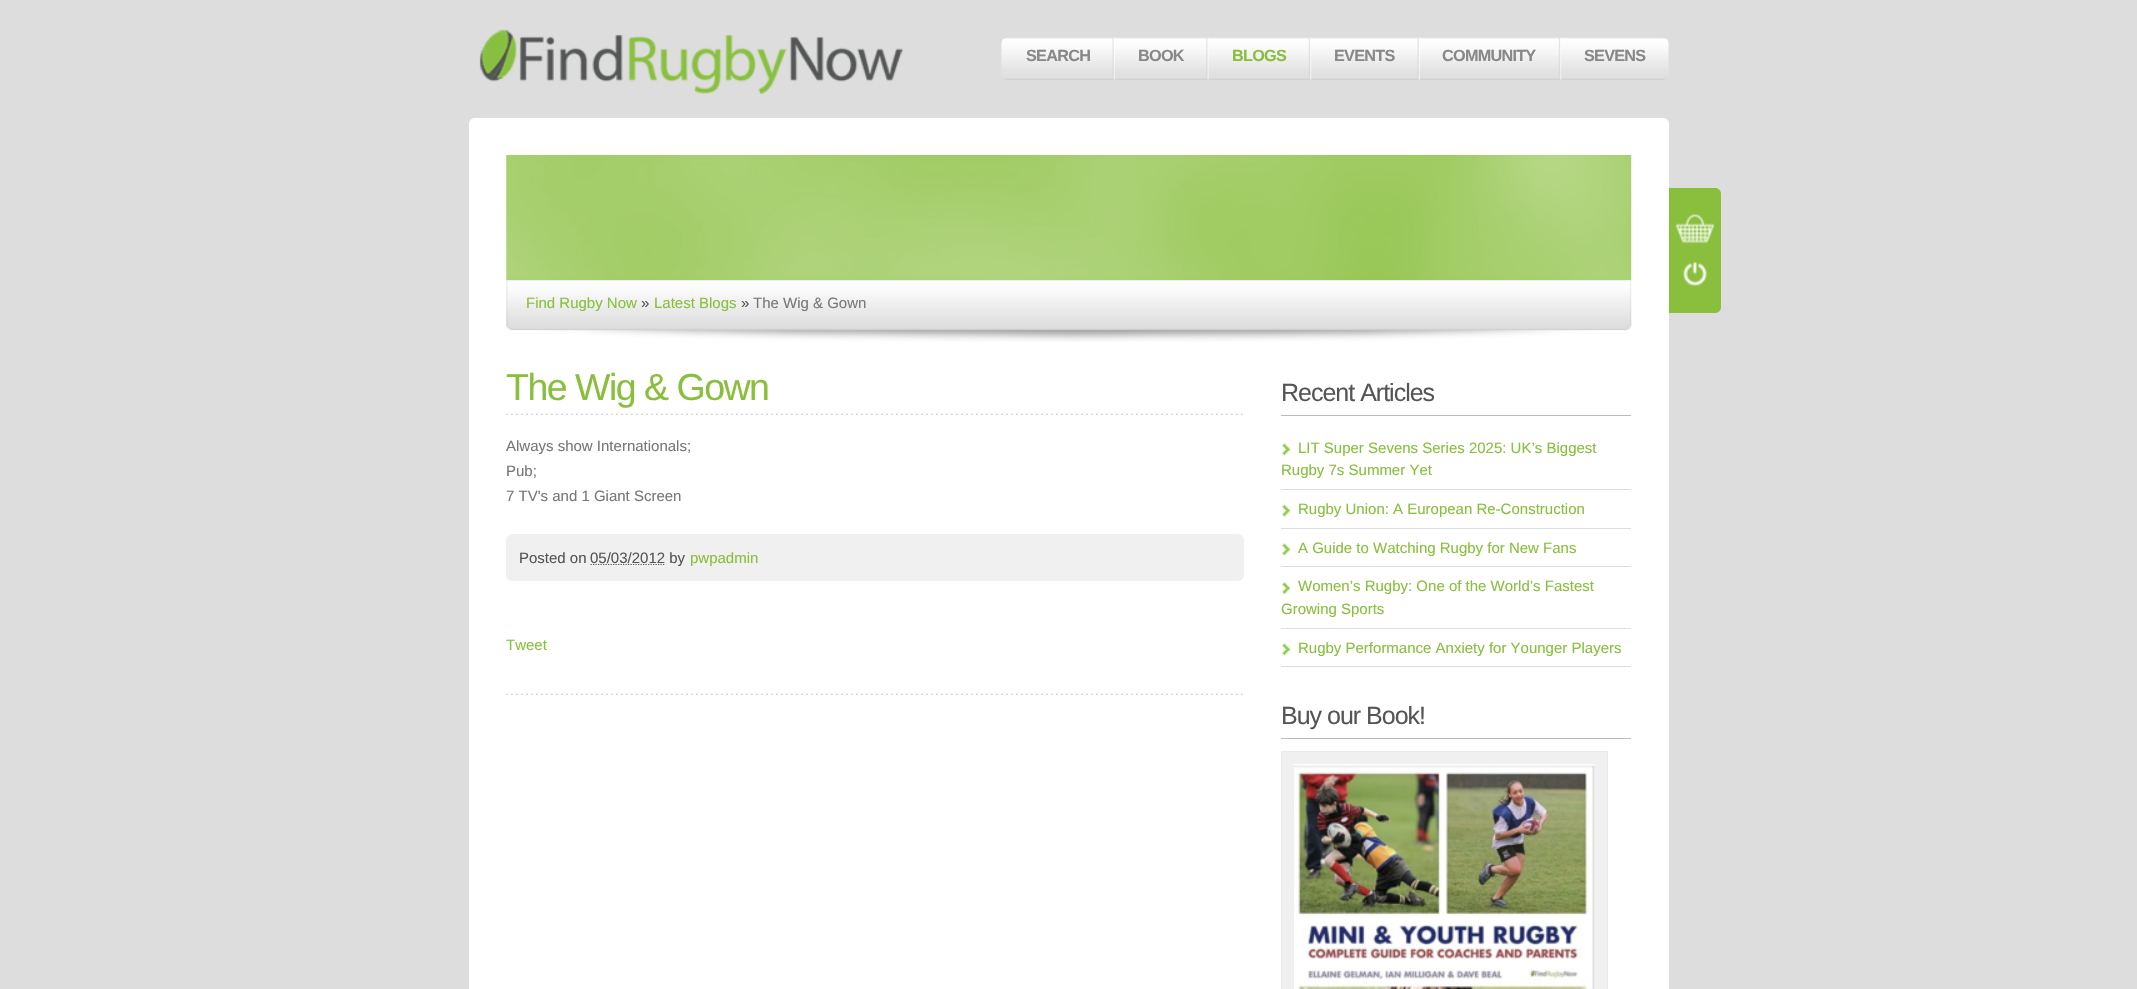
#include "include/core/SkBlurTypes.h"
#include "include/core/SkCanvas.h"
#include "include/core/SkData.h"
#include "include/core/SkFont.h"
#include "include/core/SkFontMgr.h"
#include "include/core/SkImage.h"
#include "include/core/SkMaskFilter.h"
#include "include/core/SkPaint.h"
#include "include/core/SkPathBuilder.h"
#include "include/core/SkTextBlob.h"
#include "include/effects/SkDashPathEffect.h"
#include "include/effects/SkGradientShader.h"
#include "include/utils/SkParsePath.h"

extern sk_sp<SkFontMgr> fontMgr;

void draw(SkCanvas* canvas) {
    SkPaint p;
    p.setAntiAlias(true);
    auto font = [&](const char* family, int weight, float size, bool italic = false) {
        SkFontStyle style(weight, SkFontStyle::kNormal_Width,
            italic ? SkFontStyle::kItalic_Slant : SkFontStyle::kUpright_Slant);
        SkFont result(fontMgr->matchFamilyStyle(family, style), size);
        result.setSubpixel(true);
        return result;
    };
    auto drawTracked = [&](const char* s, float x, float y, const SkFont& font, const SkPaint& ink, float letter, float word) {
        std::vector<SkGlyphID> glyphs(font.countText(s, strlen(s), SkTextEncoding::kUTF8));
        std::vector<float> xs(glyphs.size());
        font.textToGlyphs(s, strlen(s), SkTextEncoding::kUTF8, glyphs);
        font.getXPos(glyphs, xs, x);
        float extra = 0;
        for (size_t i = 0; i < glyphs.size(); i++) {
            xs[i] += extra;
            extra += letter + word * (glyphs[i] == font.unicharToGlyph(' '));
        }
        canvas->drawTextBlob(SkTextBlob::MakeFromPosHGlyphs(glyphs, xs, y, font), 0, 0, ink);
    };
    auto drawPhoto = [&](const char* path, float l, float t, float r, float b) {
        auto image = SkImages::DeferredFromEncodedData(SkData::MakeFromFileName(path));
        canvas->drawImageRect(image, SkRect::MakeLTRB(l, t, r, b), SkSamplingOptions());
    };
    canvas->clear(0xFFDDDDDD);
    drawPhoto("media/1.png", 479, 29, 903, 94);
    drawPhoto("media/2.png", 1001, 37, 1669, 80);
    auto font1 = font("Liberation Sans", 700, 16.25f);
    p.setColor(0xFF888888);
    drawTracked("SEARCH", 1026, 61, font1, p, -0.75f, 0);
    drawPhoto("media/3.png", 1112, 37, 1115, 80);
    drawTracked("BOOK", 1138, 61, font1, p, -0.75f, 0);
    drawPhoto("media/4.png", 1206, 37, 1209, 80);
    p.setColor(0xFF89BF3D);
    drawTracked("BLOGS", 1232, 61, font1, p, -0.75f, 0);
    drawPhoto("media/5.png", 1308, 37, 1312, 80);
    p.setColor(0xFF888888);
    drawTracked("EVENTS", 1334, 61, font1, p, -0.75f, 0);
    drawPhoto("media/3.png", 1417, 37, 1420, 80);
    drawTracked("COMMUNITY", 1442, 61, font1, p, -0.75f, 0);
    drawPhoto("media/5.png", 1558, 37, 1562, 80);
    drawTracked("SEVENS", 1584, 61, font1, p, -0.75f, 0);
    p.setColor(0xFF89BF3D);
    canvas->drawPath(SkPathBuilder().moveTo(1669, 188).lineTo(1715, 188).cubicTo(1718.5f, 188, 1721, 190.5f, 1721, 194).lineTo(1721, 307).cubicTo(1721, 310.5f, 1718.5f, 313, 1715, 313).lineTo(1669, 313).close().detach(), p);
    drawPhoto("media/6.png", 1675, 214, 1715, 286);
    p.setColor(0xFFFFFFFF);
    canvas->drawPath(SkPathBuilder().moveTo(475, 118).lineTo(1663, 118).cubicTo(1666.5f, 118, 1669, 120.5f, 1669, 124).lineTo(1669, 280).lineTo(469, 280).lineTo(469, 124).cubicTo(469, 120.5f, 471.5f, 118, 475, 118).close().detach(), p);
    drawPhoto("media/7.png", 506, 155, 1632, 280);
    canvas->drawRect(SkRect::MakeLTRB(469, 280, 1669, 989), p);
    drawPhoto("media/8.png", 506, 280, 1632, 342);
    auto font2 = font("Liberation Sans", 400, 15);
    p.setColor(0xFF89BF3D);
    canvas->drawString("Find Rugby Now", 526, 308, font2, p);
    p.setColor(0xFF555555);
    canvas->drawString("»", 641, 308, font2, p);
    p.setColor(0xFF89BF3D);
    canvas->drawString("Latest Blogs", 654, 308, font2, p);
    p.setColor(0xFF555555);
    canvas->drawString("»", 741, 308, font2, p);
    p.setColor(0xFF777777);
    canvas->drawString("The Wig & Gown", 753, 308, font2, p);
    drawPhoto("media/9.png", 506, 413, 1243, 415);
    auto font3 = font("Liberation Sans", 400, 37.5f);
    p.setColor(0xFF89BF3D);
    drawTracked("The Wig & Gown", 506, 400, font3, p, -1.5f, 0);
    p.setColor(0xFF777777);
    {
        const struct { const char* s; float x, y; } items[] = {
            {"Always show Internationals;", 506, 451},
            {"Pub;", 506, 476},
            {"7 TV's and 1 Giant Screen", 506, 501},
        };
        for (auto [s, x, y] : items) {
            canvas->drawString(s, x, y, font2, p);
        }
    }
    p.setColor(0xFFF0F0F0);
    canvas->drawRoundRect(SkRect::MakeLTRB(506, 534, 1244, 581), 6, 6, p);
    p.setColor(0xFF555555);
    canvas->drawString("Posted on", 519, 563, font2, p);
    p.setStyle(SkPaint::kStroke_Style);
    p.setStrokeWidth(1.2f);
    p.setPathEffect(SkDashPathEffect::Make({{1.25f, 1.25f}}, 0));
    canvas->drawPath(SkPathBuilder().moveTo(590.5f, 564.5f).lineTo(665.5f, 564.5f).detach(), p);
    p.setPathEffect(nullptr);
    p.setStyle(SkPaint::kFill_Style);
    canvas->drawString("05/03/2012 by", 590, 563, font2, p);
    p.setColor(0xFF89BF3D);
    canvas->drawString("pwpadmin", 690, 563, font2, p);
    canvas->drawString("Tweet", 506, 650, font2, p);
    drawPhoto("media/9.png", 506, 693, 1243, 695);
    p.setColor(0xFFBBBBBB);
    canvas->drawRect(SkRect::MakeLTRB(1281, 415, 1631, 416), p);
    auto font4 = font("Liberation Sans", 400, 25);
    p.setColor(0xFF555555);
    drawTracked("Recent Articles", 1281, 401, font4, p, -1, 0);
    p.setColor(0xFFDDDDDD);
    canvas->drawRect(SkRect::MakeLTRB(1281, 489, 1631, 490), p);
    drawPhoto("media/10.png", 1282, 443, 1291, 456);
    p.setColor(0xFF89BF3D);
    canvas->drawString("LIT Super Sevens Series 2025: UK’s Biggest", 1298, 453, font2, p);
    canvas->drawString("Rugby 7s Summer Yet", 1281, 475, font2, p);
    p.setColor(0xFFDDDDDD);
    canvas->drawRect(SkRect::MakeLTRB(1281, 528, 1631, 529), p);
    drawPhoto("media/11.png", 1282, 504, 1291, 517);
    p.setColor(0xFF89BF3D);
    canvas->drawString("Rugby Union: A European Re-Construction", 1298, 514, font2, p);
    p.setColor(0xFFDDDDDD);
    canvas->drawRect(SkRect::MakeLTRB(1281, 566, 1631, 567), p);
    drawPhoto("media/10.png", 1282, 543, 1291, 556);
    p.setColor(0xFF89BF3D);
    canvas->drawString("A Guide to Watching Rugby for New Fans", 1298, 553, font2, p);
    p.setColor(0xFFDDDDDD);
    canvas->drawRect(SkRect::MakeLTRB(1281, 628, 1631, 629), p);
    drawPhoto("media/12.png", 1282, 582, 1291, 595);
    p.setColor(0xFF89BF3D);
    canvas->drawString("Women’s Rugby: One of the World’s Fastest", 1298, 591, font2, p);
    canvas->drawString("Growing Sports", 1281, 614, font2, p);
    p.setColor(0xFFDDDDDD);
    canvas->drawRect(SkRect::MakeLTRB(1281, 666, 1631, 667), p);
    drawPhoto("media/10.png", 1282, 643, 1291, 656);
    p.setColor(0xFF89BF3D);
    canvas->drawString("Rugby Performance Anxiety for Younger Players", 1298, 653, font2, p);
    p.setColor(0xFFBBBBBB);
    canvas->drawRect(SkRect::MakeLTRB(1281, 738, 1631, 739), p);
    p.setColor(0xFF555555);
    drawTracked("Buy our Book!", 1281, 724, font4, p, -1, 0);
    p.setColor(0xFFF0F0F0);
    canvas->drawRect(SkRect::MakeLTRB(1281.5f, 751.5f, 1607.5f, 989.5f), p);
    p.setStyle(SkPaint::kStroke_Style);
    p.setStrokeWidth(1);
    p.setColor(0xFFEAEAEA);
    canvas->drawRect(SkRect::MakeLTRB(1281.5f, 751.5f, 1607.5f, 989.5f), p);
    drawPhoto("media/13.png", 1294, 764, 1595, 989);
}
